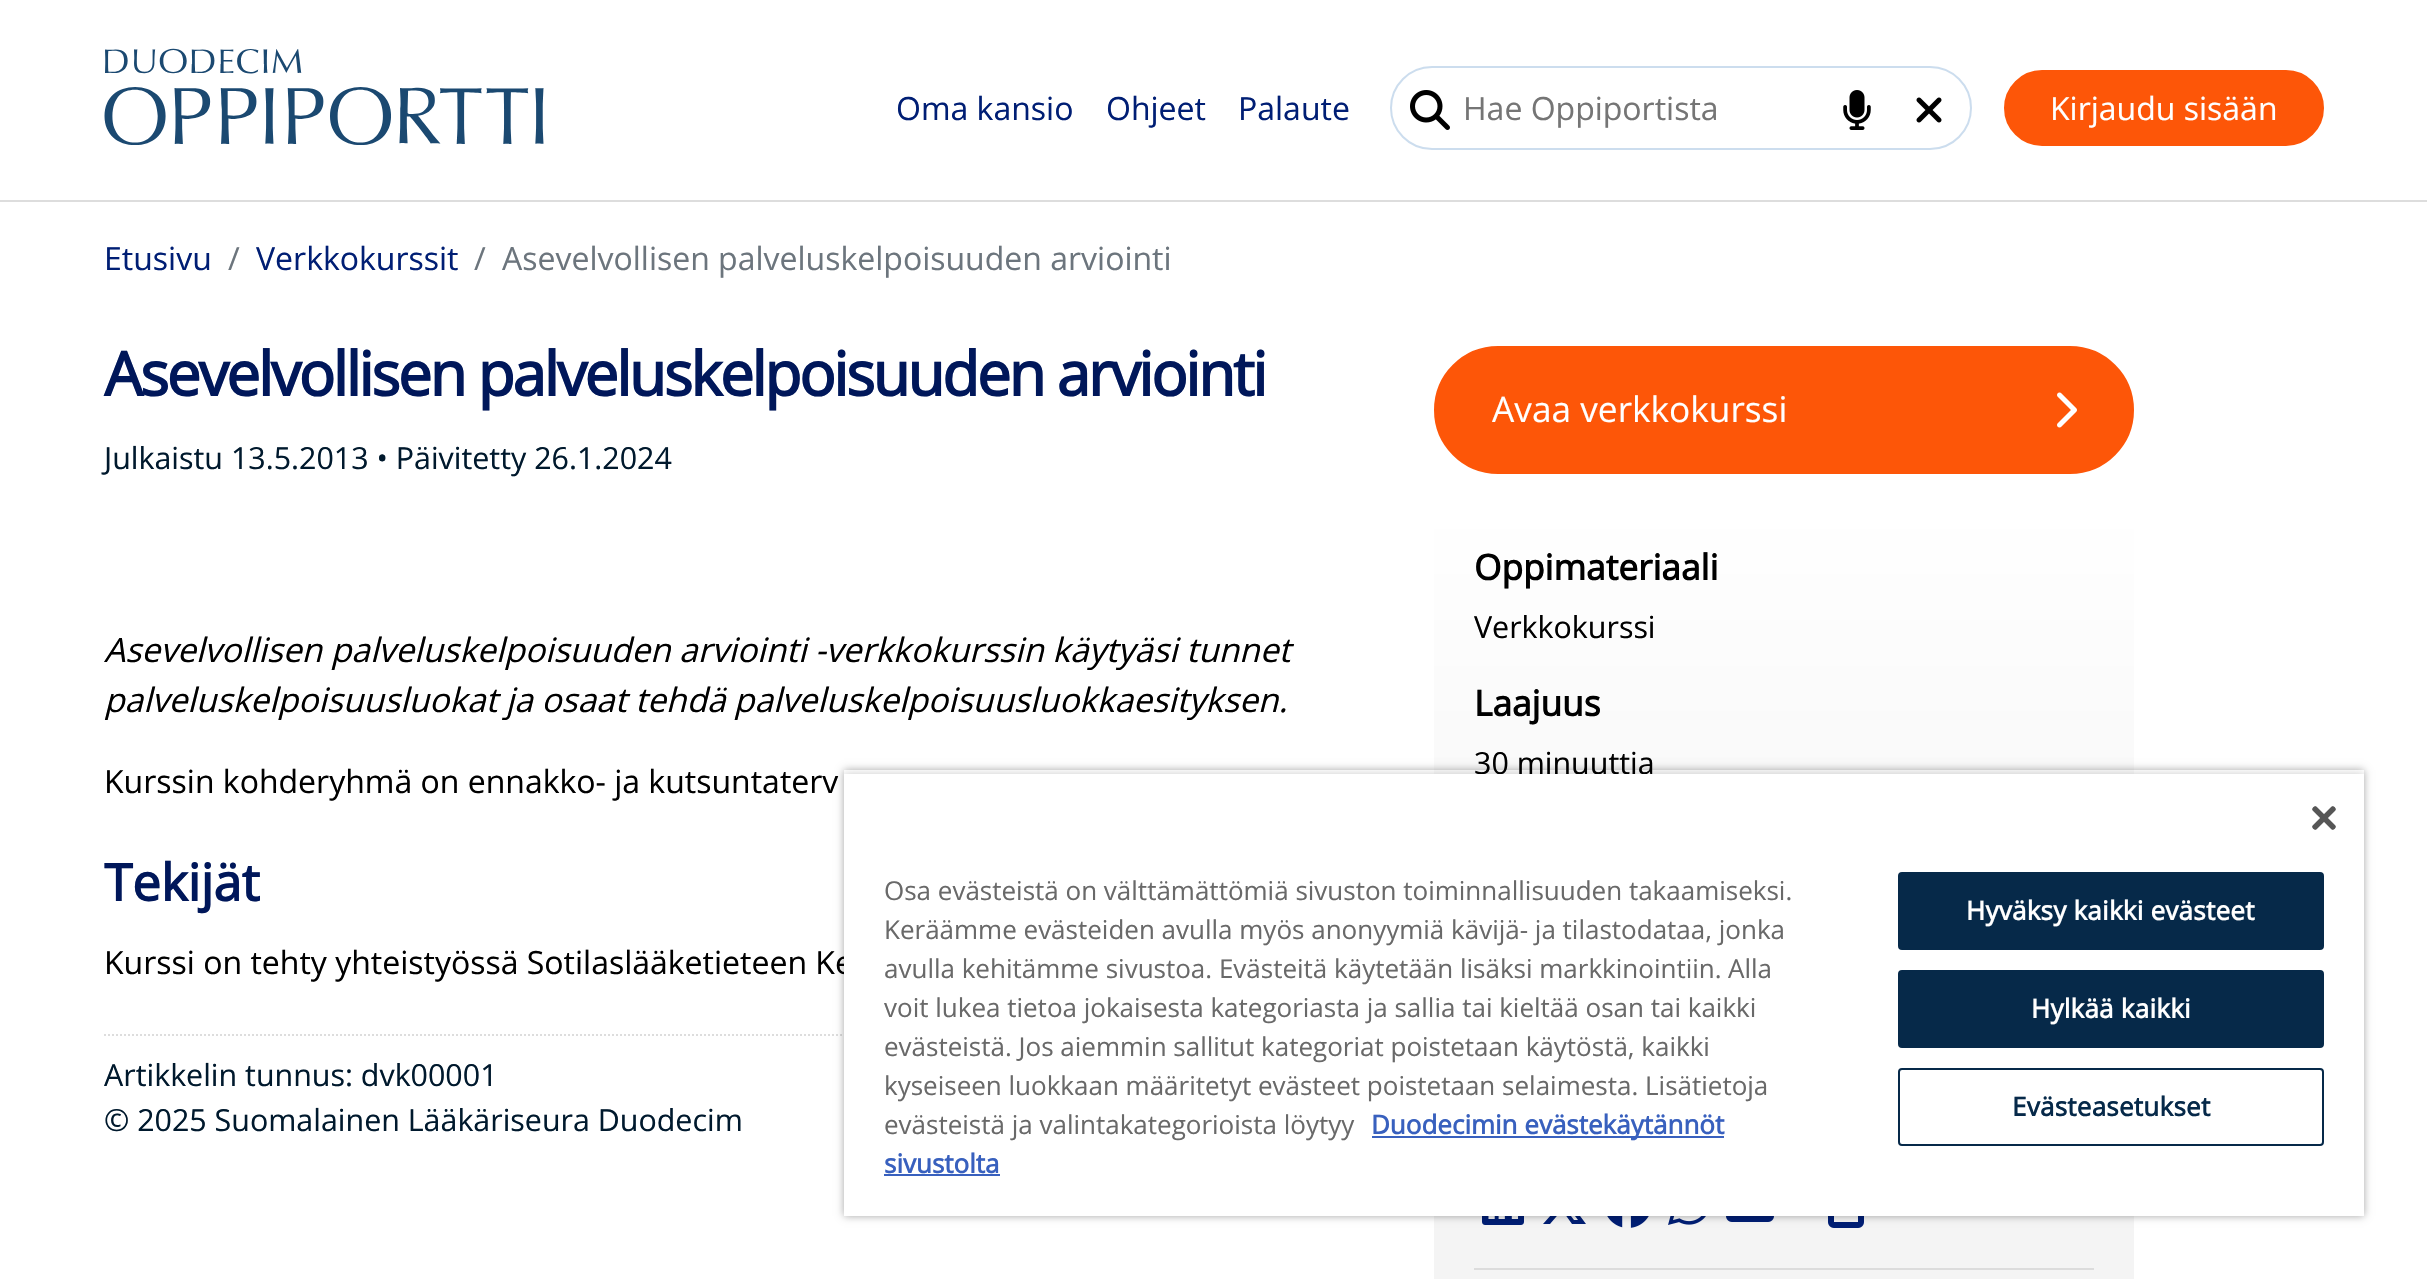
#include "include/core/SkBlurTypes.h"
#include "include/core/SkCanvas.h"
#include "include/core/SkData.h"
#include "include/core/SkFont.h"
#include "include/core/SkFontMgr.h"
#include "include/core/SkImage.h"
#include "include/core/SkMaskFilter.h"
#include "include/core/SkPaint.h"
#include "include/core/SkPathBuilder.h"
#include "include/core/SkTextBlob.h"
#include "include/effects/SkDashPathEffect.h"
#include "include/effects/SkGradientShader.h"
#include "include/utils/SkParsePath.h"

extern sk_sp<SkFontMgr> fontMgr;

void draw(SkCanvas* canvas) {
    SkPaint p;
    p.setAntiAlias(true);
    auto font = [&](const char* family, int weight, float size, bool italic = false) {
        SkFontStyle style(weight, SkFontStyle::kNormal_Width,
            italic ? SkFontStyle::kItalic_Slant : SkFontStyle::kUpright_Slant);
        SkFont result(fontMgr->matchFamilyStyle(family, style), size);
        result.setSubpixel(true);
        return result;
    };
    auto drawTracked = [&](const char* s, float x, float y, const SkFont& font, const SkPaint& ink, float letter, float word) {
        std::vector<SkGlyphID> glyphs(font.countText(s, strlen(s), SkTextEncoding::kUTF8));
        std::vector<float> xs(glyphs.size());
        font.textToGlyphs(s, strlen(s), SkTextEncoding::kUTF8, glyphs);
        font.getXPos(glyphs, xs, x);
        float extra = 0;
        for (size_t i = 0; i < glyphs.size(); i++) {
            xs[i] += extra;
            extra += letter + word * (glyphs[i] == font.unicharToGlyph(' '));
        }
        canvas->drawTextBlob(SkTextBlob::MakeFromPosHGlyphs(glyphs, xs, y, font), 0, 0, ink);
    };
    auto drawPhoto = [&](const char* path, float l, float t, float r, float b) {
        auto image = SkImages::DeferredFromEncodedData(SkData::MakeFromFileName(path));
        canvas->drawImageRect(image, SkRect::MakeLTRB(l, t, r, b), SkSamplingOptions());
    };
    canvas->clear(0xFFFFFFFF);
    p.setColor(0xFFDDDDDD);
    canvas->drawRect(SkRect::MakeLTRB(0, 200, 2427, 202), p);
    drawPhoto("media/1.png", 104, 48, 544, 145);
    auto font1 = font("Open Sans", 400, 32);
    p.setColor(0xFF001E74);
    {
        const struct { const char* s; float x, y; } items[] = {
            {"Oma kansio", 896, 120},
            {"Ohjeet", 1106, 120},
            {"Palaute", 1238, 120},
        };
        for (auto [s, x, y] : items) {
            canvas->drawString(s, x, y, font1, p);
        }
    }
    p.setStyle(SkPaint::kStroke_Style);
    p.setStrokeWidth(2);
    p.setColor(0xFFCCDDEE);
    canvas->drawRoundRect(SkRect::MakeLTRB(1391, 67, 1971, 149), 41, 41, p);
    drawPhoto("media/2.png", 1410, 90, 1450, 130);
    p.setStyle(SkPaint::kFill_Style);
    p.setColor(0xFF757575);
    canvas->drawString("Hae Oppiportista", 1463, 120, font1, p);
    drawPhoto("media/3.png", 1843, 90, 1871, 130);
    drawPhoto("media/4.png", 1916, 97, 1942, 123);
    p.setColor(0xFFFD5608);
    canvas->drawRoundRect(SkRect::MakeLTRB(2005, 71, 2323, 145), 37, 37, p);
    p.setStyle(SkPaint::kStroke_Style);
    canvas->drawRoundRect(SkRect::MakeLTRB(2005, 71, 2323, 145), 37, 37, p);
    p.setStyle(SkPaint::kFill_Style);
    p.setColor(0xFFFFFFFF);
    canvas->drawString("Kirjaudu sisään", 2050, 120, font1, p);
    p.setColor(0xFF001E74);
    canvas->drawString("Etusivu", 104, 270, font1, p);
    p.setColor(0xFF6C757D);
    canvas->drawString("/", 228, 270, font1, p);
    p.setColor(0xFF001E74);
    canvas->drawString("Verkkokurssit", 256, 270, font1, p);
    p.setColor(0xFF6C757D);
    canvas->drawString("/", 474, 270, font1, p);
    canvas->drawString("Asevelvollisen palveluskelpoisuuden arviointi", 502, 270, font1, p);
    auto font2 = font("Open Sans", 700, 60.75f);
    p.setColor(0xFF00175A);
    drawTracked("Asevelvollisen palveluskelpoisuuden arviointi", 104, 396, font2, p, -2.45f, 0);
    auto font3 = font("Open Sans", 400, 30.4f);
    p.setColor(0xFF00192D);
    canvas->drawString("Julkaistu 13.5.2013 • Päivitetty 26.1.2024", 104, 469, font3, p);
    auto font4 = font("Open Sans", 400, 33.6f, true);
    p.setColor(0xFF000000);
    drawTracked("Asevelvollisen palveluskelpoisuuden arviointi -verkkokurssin käytyäsi tunnet", 104, 662, font4, p, 0, -0.25f);
    drawTracked("palveluskelpoisuusluokat ja osaat tehdä palveluskelpoisuusluokkaesityksen.", 104, 712, font4, p, 0, -0.5f);
    canvas->drawString("Kurssin kohderyhmä on ennakko- ja kutsuntaterv", 104, 793, font1, p);
    auto font5 = font("Open Sans", 700, 51);
    p.setColor(0xFF00175A);
    canvas->drawString("Tekijät", 104, 901, font5, p);
    p.setColor(0xFF000000);
    canvas->drawString("Kurssi on tehty yhteistyössä Sotilaslääketieteen Ke", 104, 974, font1, p);
    p.setStyle(SkPaint::kStroke_Style);
    p.setColor(0xFFDDDDDD);
    p.setPathEffect(SkDashPathEffect::Make({{2, 2}}, 0));
    canvas->drawPath(SkPathBuilder().moveTo(104, 1035).lineTo(1374, 1035).detach(), p);
    p.setPathEffect(nullptr);
    p.setStyle(SkPaint::kFill_Style);
    p.setColor(0xFF00192D);
    canvas->drawString("Artikkelin tunnus: dvk00001", 104, 1086, font3, p);
    canvas->drawString("© 2025 Suomalainen Lääkäriseura Duodecim", 104, 1131, font3, p);
    p.setColor(0xFFFD5608);
    canvas->drawRoundRect(SkRect::MakeLTRB(1435, 347, 2133, 473), 63, 63, p);
    p.setStyle(SkPaint::kStroke_Style);
    canvas->drawRoundRect(SkRect::MakeLTRB(1435, 347, 2133, 473), 63, 63, p);
    auto font6 = font("Open Sans", 400, 35.25f);
    p.setStyle(SkPaint::kFill_Style);
    p.setColor(0xFFFFFFFF);
    canvas->drawString("Avaa verkkokurssi", 1492, 422, font6, p);
    drawPhoto("media/5.png", 2057, 392, 2077, 428);
    {
        const SkColor colors[] = {0xFFFFFFFF, 0xFFF4F4F4, 0xFFF4F4F4};
        const float stops[] = {0, 0.94f, 1};
        const SkPoint ends[] = {{1784, 506}, {1784, 1040}};
        p.setShader(SkGradientShader::MakeLinear(ends, colors, stops, 3, SkTileMode::kClamp));
        p.setAlpha(255);
    }
    canvas->drawRoundRect(SkRect::MakeLTRB(1434, 506, 2134, 1040), 8, 8, p);
    auto font7 = font("Open Sans", 700, 35.25f);
    p.setShader(nullptr);
    p.setColor(0xFF000000);
    canvas->drawString("Oppimateriaali", 1474, 580, font7, p);
    canvas->drawString("Verkkokurssi", 1474, 638, font3, p);
    canvas->drawString("Laajuus", 1474, 716, font7, p);
    canvas->drawString("30 minuuttia", 1474, 774, font3, p);
    p.setColor(0xFFF4F4F4);
    canvas->drawRect(SkRect::MakeLTRB(1434, 1216, 2134, 1279), p);
    drawPhoto("media/6.png", 1482, 1216, 1524, 1225);
    p.setColor(0xFF001E74);
    canvas->drawPath(SkPathBuilder().moveTo(1576, 1184).lineTo(1583, 1184).lineTo(1569, 1201).lineTo(1586, 1224).lineTo(1572, 1224).lineTo(1562, 1210).lineTo(1550, 1224).lineTo(1543, 1224).lineTo(1559, 1206).lineTo(1543, 1184).lineTo(1556, 1184).lineTo(1566, 1197).close().moveTo(1574, 1220).lineTo(1578, 1220).lineTo(1554, 1188).lineTo(1550, 1188).close().detach(), p);
    drawPhoto("media/7.png", 1607, 1216, 1649, 1228);
    drawPhoto("media/8.png", 1668, 1216, 1706, 1225);
    drawPhoto("media/9.png", 1726, 1216, 1774, 1222);
    drawPhoto("media/10.png", 1828, 1216, 1864, 1228);
    p.setColor(0xFFDCDCDC);
    canvas->drawRect(SkRect::MakeLTRB(1474, 1268, 2094, 1270), p);
    canvas->save();
    canvas->clipPath(SkPathBuilder(SkPathFillType::kEvenOdd).moveTo(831, 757).lineTo(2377, 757).lineTo(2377, 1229).lineTo(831, 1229).close().moveTo(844, 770).lineTo(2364, 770).lineTo(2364, 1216).lineTo(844, 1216).close().detach(), true);
    p.setColor(0x59000000);
    p.setMaskFilter(SkMaskFilter::MakeBlur(kNormal_SkBlurStyle, 4));
    canvas->drawRect(SkRect::MakeLTRB(844, 770, 2364, 1216), p);
    p.setMaskFilter(nullptr);
    canvas->restore();
    canvas->save();
    canvas->clipRect(SkRect::MakeLTRB(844, 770, 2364, 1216));
    p.setColor(0x33000000);
    p.setMaskFilter(SkMaskFilter::MakeBlur(kNormal_SkBlurStyle, 4));
    canvas->drawRect(SkRect::MakeLTRB(844, 774, 2364, 1216), p);
    p.setMaskFilter(nullptr);
    canvas->restore();
    p.setColor(0xFFFFFFFF);
    canvas->drawRect(SkRect::MakeLTRB(844, 774, 2364, 1216), p);
    drawPhoto("media/11.png", 2312, 806, 2336, 830);
    auto font8 = font("Open Sans", 400, 26);
    p.setColor(0xFF696969);
    {
        const struct { const char* s; float x, y; } items[] = {
            {"Osa evästeistä on välttämättömiä sivuston toiminnallisuuden takaamiseksi.", 884, 900},
            {"Keräämme evästeiden avulla myös anonyymiä kävijä- ja tilastodataa, jonka", 884, 939},
            {"avulla kehitämme sivustoa. Evästeitä käytetään lisäksi markkinointiin.", 884, 978},
            {"Alla", 1728, 978},
            {"voit lukea tietoa jokaisesta kategoriasta ja sallia tai kieltää osan tai kaikki", 884, 1017},
            {"evästeistä. Jos aiemmin sallitut kategoriat poistetaan käytöstä, kaikki", 884, 1056},
            {"kyseiseen luokkaan määritetyt evästeet poistetaan selaimesta. Lisätietoja", 884, 1095},
            {"evästeistä ja valintakategorioista löytyy", 884, 1134},
        };
        for (auto [s, x, y] : items) {
            canvas->drawString(s, x, y, font8, p);
        }
    }
    p.setColor(0xFF3860BE);
    canvas->drawRect(SkRect::MakeLTRB(1372, 1136, 1724, 1138), p);
    auto font9 = font("Open Sans", 700, 26);
    canvas->drawString("Duodecimin evästekäytännöt", 1371, 1134, font9, p);
    canvas->drawString("sivustolta", 884, 1173, font9, p);
    canvas->drawRect(SkRect::MakeLTRB(884, 1174, 1000, 1176), p);
    p.setColor(0xFF062949);
    canvas->drawRoundRect(SkRect::MakeLTRB(1899, 873, 2323, 949), 3, 3, p);
    p.setStyle(SkPaint::kStroke_Style);
    canvas->drawRoundRect(SkRect::MakeLTRB(1899, 873, 2323, 949), 3, 3, p);
    p.setStyle(SkPaint::kFill_Style);
    p.setColor(0xFFFFFFFF);
    drawTracked("Hyväksy kaikki evästeet", 1966, 920, font9, p, 0.25f, 0);
    p.setColor(0xFF062949);
    canvas->drawRoundRect(SkRect::MakeLTRB(1899, 971, 2323, 1047), 3, 3, p);
    p.setStyle(SkPaint::kStroke_Style);
    canvas->drawRoundRect(SkRect::MakeLTRB(1899, 971, 2323, 1047), 3, 3, p);
    p.setStyle(SkPaint::kFill_Style);
    p.setColor(0xFFFFFFFF);
    drawTracked("Hylkää kaikki", 2031, 1018, font9, p, 0.25f, 0);
    p.setStyle(SkPaint::kStroke_Style);
    p.setColor(0xFF062949);
    canvas->drawRoundRect(SkRect::MakeLTRB(1899, 1069, 2323, 1145), 3, 3, p);
    p.setStyle(SkPaint::kFill_Style);
    drawTracked("Evästeasetukset", 2012, 1116, font9, p, 0.25f, 0);
}
